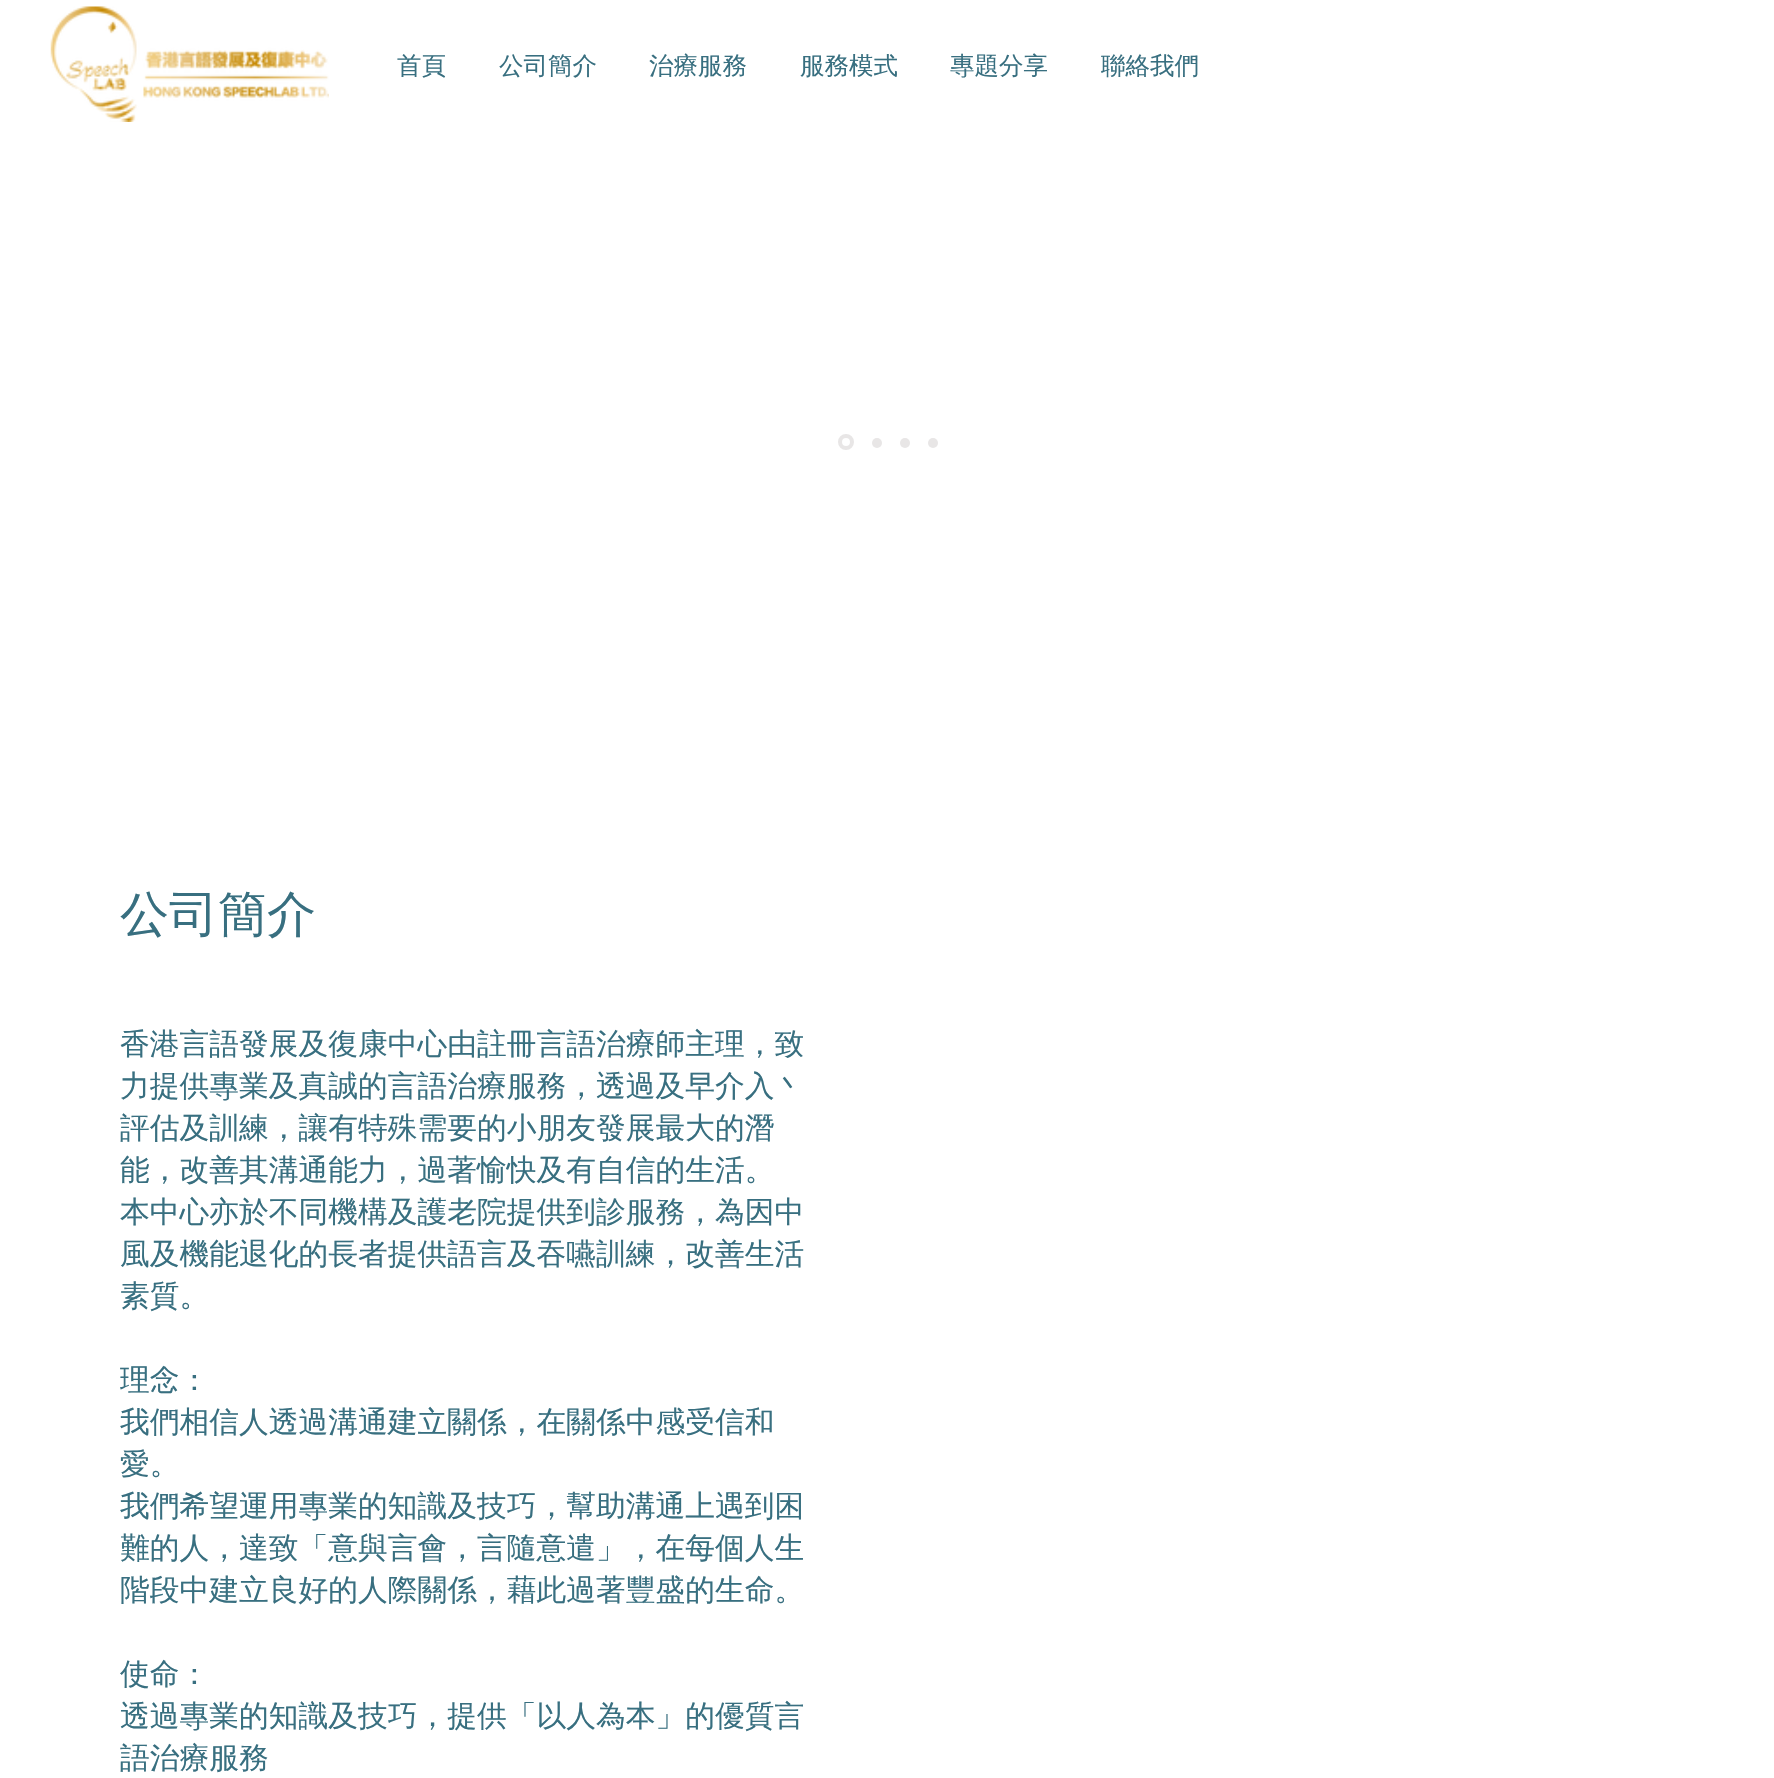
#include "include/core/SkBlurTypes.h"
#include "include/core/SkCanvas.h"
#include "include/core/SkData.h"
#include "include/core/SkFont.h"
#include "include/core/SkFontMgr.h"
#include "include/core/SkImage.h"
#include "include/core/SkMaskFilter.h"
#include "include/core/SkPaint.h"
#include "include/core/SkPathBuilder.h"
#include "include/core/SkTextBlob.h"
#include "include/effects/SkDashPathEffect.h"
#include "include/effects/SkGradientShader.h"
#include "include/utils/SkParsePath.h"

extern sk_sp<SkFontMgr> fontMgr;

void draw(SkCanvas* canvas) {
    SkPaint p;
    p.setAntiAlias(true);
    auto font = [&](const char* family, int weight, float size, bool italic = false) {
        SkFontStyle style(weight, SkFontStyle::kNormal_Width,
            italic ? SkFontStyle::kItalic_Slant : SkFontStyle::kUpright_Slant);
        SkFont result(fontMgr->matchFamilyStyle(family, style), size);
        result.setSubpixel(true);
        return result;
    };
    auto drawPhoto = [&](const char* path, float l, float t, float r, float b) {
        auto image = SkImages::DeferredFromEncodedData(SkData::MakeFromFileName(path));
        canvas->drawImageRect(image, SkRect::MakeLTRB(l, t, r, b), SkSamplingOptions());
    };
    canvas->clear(0xFFFFFFFF);
    drawPhoto("media/1.png", 50, 6, 329, 122);
    auto font1 = font("WenQuanYi Zen Hei", 500, 24.5f);
    p.setColor(0xFF386F80);
    {
        const struct { const char* s; float x, y; } items[] = {
            {"首頁", 397, 74},
            {"公司簡介", 499, 74},
            {"治療服務", 649, 74},
            {"服務模式", 800, 74},
            {"專題分享", 950, 74},
            {"聯絡我們", 1101, 74},
        };
        for (auto [s, x, y] : items) {
            canvas->drawString(s, x, y, font1, p);
        }
    }
    p.setStyle(SkPaint::kStroke_Style);
    p.setStrokeWidth(4);
    p.setColor(0xFFE8E6E6);
    canvas->drawCircle(846, 442, 6, p);
    p.setStyle(SkPaint::kFill_Style);
    canvas->drawCircle(877, 443, 5, p);
    canvas->drawCircle(905, 443, 5, p);
    canvas->drawCircle(933, 443, 5, p);
    auto font2 = font("WenQuanYi Zen Hei", 500, 49);
    p.setColor(0xFF386F80);
    canvas->drawString("公司簡介", 120, 931, font2, p);
    auto font3 = font("WenQuanYi Zen Hei", 500, 29.75f);
    {
        const struct { const char* s; float x, y; } items[] = {
            {"香港言語發展及復康中心由註冊言語治療師主理，致", 120, 1054},
            {"力提供專業及真誠的言語治療服務，透過及早介入丶", 120, 1096},
            {"評估及訓練，讓有特殊需要的小朋友發展最大的潛", 120, 1138},
            {"能，改善其溝通能力，過著愉快及有自信的生活。", 120, 1180},
            {"本中心亦於不同機構及護老院提供到診服務，為因中", 120, 1222},
            {"風及機能退化的長者提供語言及吞嚥訓練，改善生活", 120, 1264},
            {"素質。", 120, 1306},
            {"理念：", 120, 1390},
            {"我們相信人透過溝通建立關係，在關係中感受信和", 120, 1432},
            {"愛。", 120, 1474},
            {"我們希望運用專業的知識及技巧，幫助溝通上遇到困", 120, 1516},
            {"難的人，達致「意與言會，言隨意遣」，在每個人生", 120, 1558},
            {"階段中建立良好的人際關係，藉此過著豐盛的生命。", 120, 1600},
            {"使命：", 120, 1684},
            {"透過專業的知識及技巧，提供「以人為本」的優質言", 120, 1726},
            {"語治療服務", 120, 1768},
        };
        for (auto [s, x, y] : items) {
            canvas->drawString(s, x, y, font3, p);
        }
    }
}
